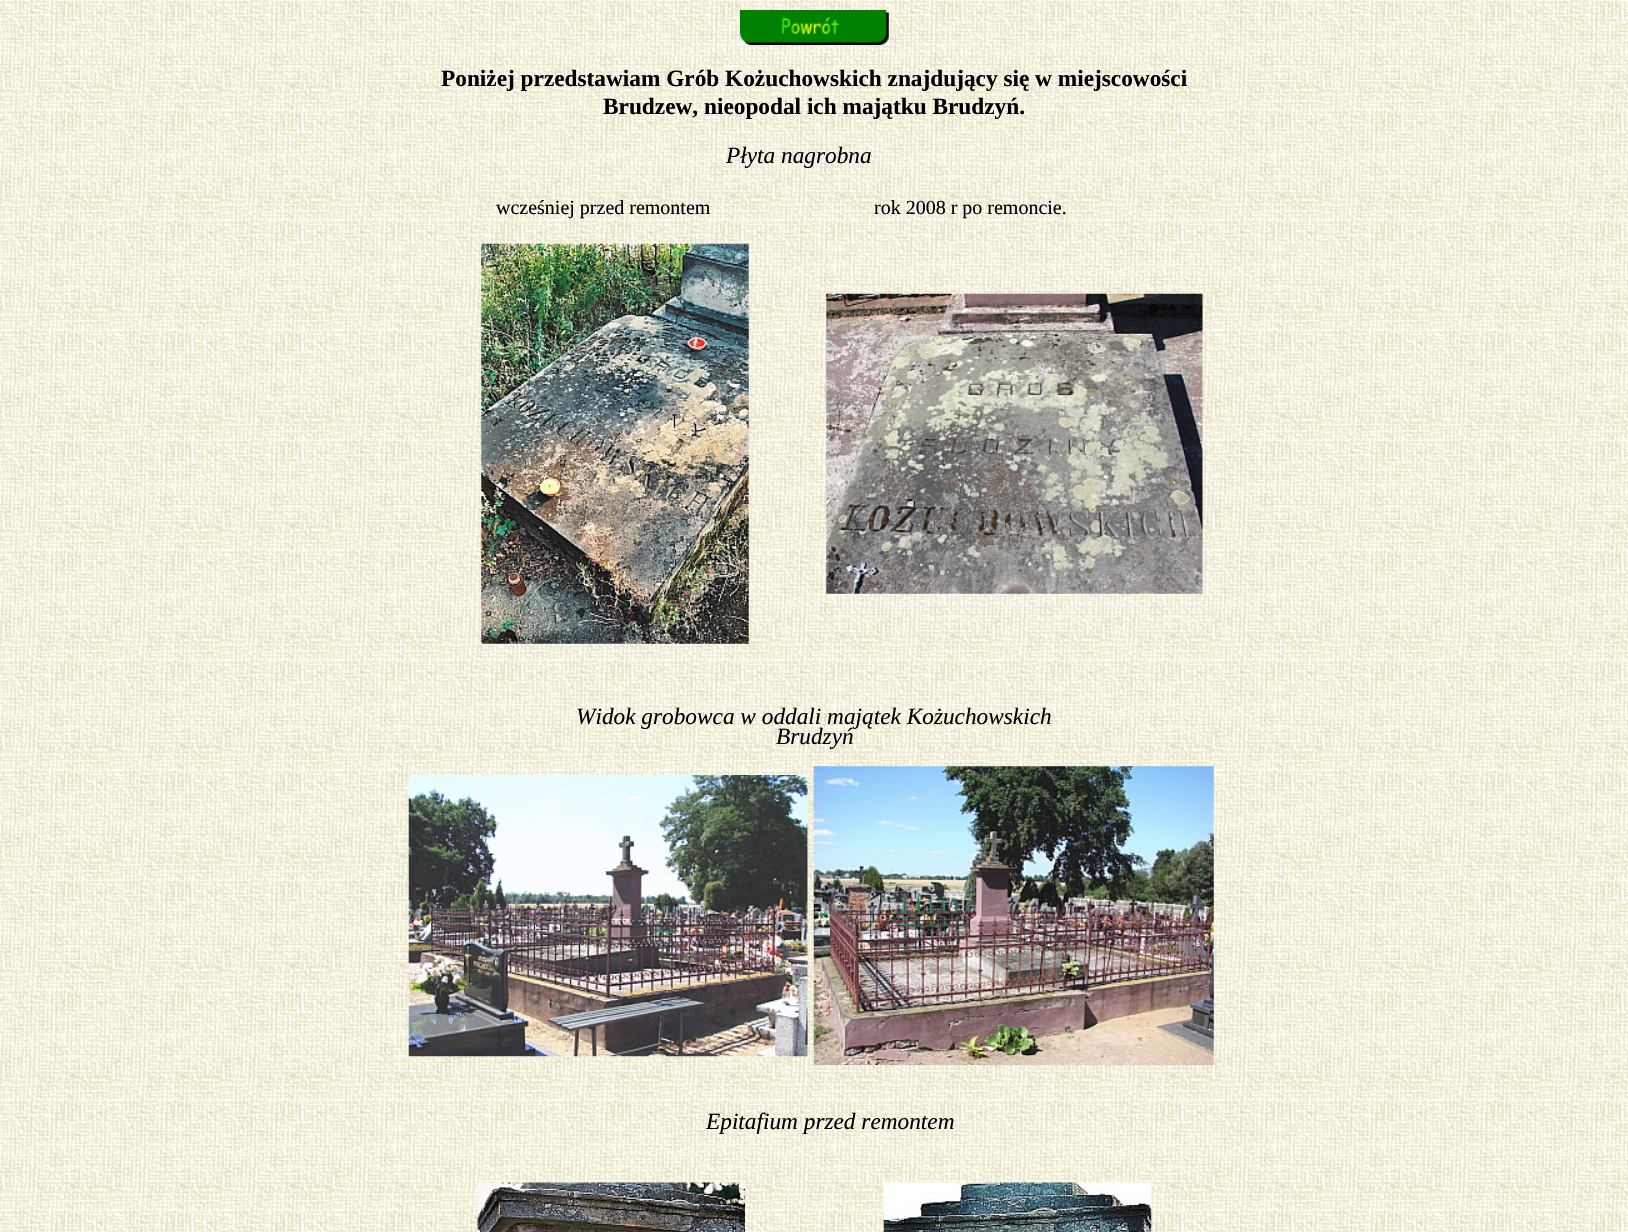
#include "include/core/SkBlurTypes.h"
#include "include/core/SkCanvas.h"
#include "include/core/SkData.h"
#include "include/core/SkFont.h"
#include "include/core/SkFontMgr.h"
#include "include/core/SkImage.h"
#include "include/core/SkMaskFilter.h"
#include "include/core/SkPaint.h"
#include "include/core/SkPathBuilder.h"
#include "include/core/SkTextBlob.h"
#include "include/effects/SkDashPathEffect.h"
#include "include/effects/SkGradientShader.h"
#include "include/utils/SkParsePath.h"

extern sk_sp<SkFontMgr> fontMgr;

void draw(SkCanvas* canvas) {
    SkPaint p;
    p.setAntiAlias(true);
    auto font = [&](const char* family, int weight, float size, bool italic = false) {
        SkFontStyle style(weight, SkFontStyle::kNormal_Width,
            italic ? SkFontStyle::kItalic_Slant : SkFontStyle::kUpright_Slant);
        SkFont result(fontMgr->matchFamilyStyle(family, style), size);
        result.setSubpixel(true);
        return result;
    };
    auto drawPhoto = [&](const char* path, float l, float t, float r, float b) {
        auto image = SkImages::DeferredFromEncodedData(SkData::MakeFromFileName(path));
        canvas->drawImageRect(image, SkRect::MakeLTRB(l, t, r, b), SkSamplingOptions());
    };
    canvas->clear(0xFFFFFFFF);
    drawPhoto("media/1.png", 0, 0, 1628, 1232);
    drawPhoto("media/2.png", 740, 10, 889, 45);
    auto font1 = font("Liberation Serif", 700, 23.3f);
    p.setColor(0xFF000000);
    canvas->drawString("Poniżej przedstawiam Grób Kożuchowskich znajdujący się w miejscowości", 441, 86, font1, p);
    canvas->drawString("Brudzew, nieopodal ich majątku Brudzyń.", 603, 114, font1, p);
    auto font2 = font("Liberation Serif", 400, 23.3f, true);
    canvas->drawString("Płyta nagrobna", 726, 163, font2, p);
    auto font3 = font("Liberation Serif", 400, 20);
    canvas->drawString("wcześniej przed remontem", 496, 214, font3, p);
    canvas->drawString("rok 2008 r po remoncie.", 874, 214, font3, p);
    drawPhoto("media/3.png", 481, 243, 749, 644);
    drawPhoto("media/4.png", 826, 293, 1203, 594);
    canvas->drawString("Widok grobowca w oddali majątek Kożuchowskich", 576, 724, font2, p);
    canvas->drawString("Brudzyń", 776, 744, font2, p);
    drawPhoto("media/5.png", 408, 775, 808, 1057);
    drawPhoto("media/6.png", 813, 766, 1214, 1065);
    canvas->drawString("Epitafium przed remontem", 706, 1129, font2, p);
    drawPhoto("media/7.png", 477, 1182, 745, 1232);
    drawPhoto("media/8.png", 883, 1182, 1152, 1232);
}
